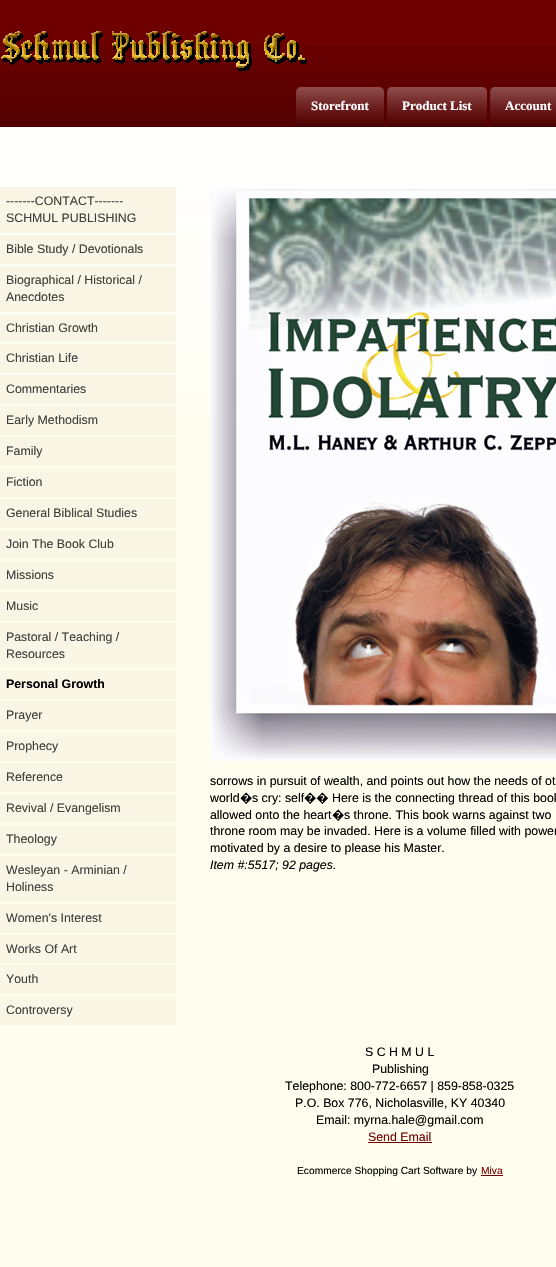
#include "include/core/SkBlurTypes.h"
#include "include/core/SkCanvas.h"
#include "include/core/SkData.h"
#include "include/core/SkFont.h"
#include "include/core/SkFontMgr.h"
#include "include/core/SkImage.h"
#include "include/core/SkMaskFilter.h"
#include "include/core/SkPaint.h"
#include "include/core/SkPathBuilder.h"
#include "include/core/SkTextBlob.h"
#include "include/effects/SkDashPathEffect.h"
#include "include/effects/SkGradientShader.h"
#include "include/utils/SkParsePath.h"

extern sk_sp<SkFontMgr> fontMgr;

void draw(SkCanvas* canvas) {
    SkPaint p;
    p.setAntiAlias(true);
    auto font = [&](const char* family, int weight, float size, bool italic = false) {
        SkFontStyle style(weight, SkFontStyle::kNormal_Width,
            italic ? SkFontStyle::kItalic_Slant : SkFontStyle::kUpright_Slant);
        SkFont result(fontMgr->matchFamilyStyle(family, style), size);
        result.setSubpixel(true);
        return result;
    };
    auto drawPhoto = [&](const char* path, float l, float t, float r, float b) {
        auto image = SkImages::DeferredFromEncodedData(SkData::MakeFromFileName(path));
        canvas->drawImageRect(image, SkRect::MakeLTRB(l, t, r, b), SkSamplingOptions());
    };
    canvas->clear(0xFFFFFDEE);
    drawPhoto("media/1.png", 0, 127, 556, 415);
    p.setColor(0xFF6E0000);
    canvas->drawRect(SkRect::MakeLTRB(0, 0, 556, 46), p);
    drawPhoto("media/2.png", 0, 46, 556, 127);
    drawPhoto("media/3.png", 1, 31, 307, 71);
    drawPhoto("media/4.png", 296, 87, 384, 127);
    drawPhoto("media/5.png", 380, 87, 384, 91);
    drawPhoto("media/6.png", 296, 87, 300, 118);
    auto font1 = font("Liberation Serif", 700, 13);
    p.setColor(0xFFFFFFFF);
    canvas->drawString("Storefront", 311, 110, font1, p);
    drawPhoto("media/7.png", 387, 87, 487, 127);
    drawPhoto("media/5.png", 483, 87, 487, 91);
    drawPhoto("media/6.png", 387, 87, 391, 118);
    canvas->drawString("Product List", 402, 110, font1, p);
    drawPhoto("media/8.png", 490, 87, 556, 127);
    drawPhoto("media/6.png", 490, 87, 494, 118);
    canvas->drawString("Account", 505, 110, font1, p);
    p.setColor(0xFFF9F6E6);
    canvas->drawRect(SkRect::MakeLTRB(0, 187, 176, 233), p);
    auto font2 = font("Liberation Sans", 400, 12.35f);
    p.setColor(0xFF3E3E3A);
    canvas->drawString("-------CONTACT-------", 6, 205, font2, p);
    canvas->drawString("SCHMUL PUBLISHING", 6, 222, font2, p);
    p.setColor(0xFFF9F6E6);
    canvas->drawRect(SkRect::MakeLTRB(0, 235, 176, 264), p);
    p.setColor(0xFF3E3E3A);
    canvas->drawString("Bible Study / Devotionals", 6, 253, font2, p);
    p.setColor(0xFFF9F6E6);
    canvas->drawRect(SkRect::MakeLTRB(0, 266, 176, 312), p);
    p.setColor(0xFF3E3E3A);
    canvas->drawString("Biographical / Historical /", 6, 284, font2, p);
    canvas->drawString("Anecdotes", 6, 301, font2, p);
    p.setColor(0xFFF9F6E6);
    canvas->drawRect(SkRect::MakeLTRB(0, 314, 176, 342), p);
    p.setColor(0xFF3E3E3A);
    canvas->drawString("Christian Growth", 6, 332, font2, p);
    p.setColor(0xFFF9F6E6);
    canvas->drawRect(SkRect::MakeLTRB(0, 344, 176, 373), p);
    p.setColor(0xFF3E3E3A);
    canvas->drawString("Christian Life", 6, 362, font2, p);
    p.setColor(0xFFF9F6E6);
    canvas->drawRect(SkRect::MakeLTRB(0, 375, 176, 404), p);
    p.setColor(0xFF3E3E3A);
    canvas->drawString("Commentaries", 6, 393, font2, p);
    p.setColor(0xFFF9F6E6);
    canvas->drawRect(SkRect::MakeLTRB(0, 406, 176, 435), p);
    p.setColor(0xFF3E3E3A);
    canvas->drawString("Early Methodism", 6, 424, font2, p);
    p.setColor(0xFFF9F6E6);
    canvas->drawRect(SkRect::MakeLTRB(0, 437, 176, 466), p);
    p.setColor(0xFF3E3E3A);
    canvas->drawString("Family", 6, 455, font2, p);
    p.setColor(0xFFF9F6E6);
    canvas->drawRect(SkRect::MakeLTRB(0, 468, 176, 497), p);
    p.setColor(0xFF3E3E3A);
    canvas->drawString("Fiction", 6, 486, font2, p);
    p.setColor(0xFFF9F6E6);
    canvas->drawRect(SkRect::MakeLTRB(0, 499, 176, 528), p);
    p.setColor(0xFF3E3E3A);
    canvas->drawString("General Biblical Studies", 6, 517, font2, p);
    p.setColor(0xFFF9F6E6);
    canvas->drawRect(SkRect::MakeLTRB(0, 530, 176, 559), p);
    p.setColor(0xFF3E3E3A);
    canvas->drawString("Join The Book Club", 6, 548, font2, p);
    p.setColor(0xFFF9F6E6);
    canvas->drawRect(SkRect::MakeLTRB(0, 561, 176, 590), p);
    p.setColor(0xFF3E3E3A);
    canvas->drawString("Missions", 6, 579, font2, p);
    p.setColor(0xFFF9F6E6);
    canvas->drawRect(SkRect::MakeLTRB(0, 592, 176, 621), p);
    p.setColor(0xFF3E3E3A);
    canvas->drawString("Music", 6, 610, font2, p);
    p.setColor(0xFFF9F6E6);
    canvas->drawRect(SkRect::MakeLTRB(0, 623, 176, 668), p);
    p.setColor(0xFF3E3E3A);
    canvas->drawString("Pastoral / Teaching /", 6, 641, font2, p);
    canvas->drawString("Resources", 6, 658, font2, p);
    p.setColor(0xFFF9F6E6);
    canvas->drawRect(SkRect::MakeLTRB(0, 670, 176, 699), p);
    auto font3 = font("Liberation Sans", 700, 12.35f);
    p.setColor(0xFF000000);
    canvas->drawString("Personal Growth", 6, 688, font3, p);
    p.setColor(0xFFF9F6E6);
    canvas->drawRect(SkRect::MakeLTRB(0, 701, 176, 730), p);
    p.setColor(0xFF3E3E3A);
    canvas->drawString("Prayer", 6, 719, font2, p);
    p.setColor(0xFFF9F6E6);
    canvas->drawRect(SkRect::MakeLTRB(0, 732, 176, 761), p);
    p.setColor(0xFF3E3E3A);
    canvas->drawString("Prophecy", 6, 750, font2, p);
    p.setColor(0xFFF9F6E6);
    canvas->drawRect(SkRect::MakeLTRB(0, 763, 176, 792), p);
    p.setColor(0xFF3E3E3A);
    canvas->drawString("Reference", 6, 781, font2, p);
    p.setColor(0xFFF9F6E6);
    canvas->drawRect(SkRect::MakeLTRB(0, 794, 176, 823), p);
    p.setColor(0xFF3E3E3A);
    canvas->drawString("Revival / Evangelism", 6, 812, font2, p);
    p.setColor(0xFFF9F6E6);
    canvas->drawRect(SkRect::MakeLTRB(0, 825, 176, 854), p);
    p.setColor(0xFF3E3E3A);
    canvas->drawString("Theology", 6, 843, font2, p);
    p.setColor(0xFFF9F6E6);
    canvas->drawRect(SkRect::MakeLTRB(0, 856, 176, 902), p);
    p.setColor(0xFF3E3E3A);
    canvas->drawString("Wesleyan - Arminian /", 6, 874, font2, p);
    canvas->drawString("Holiness", 6, 891, font2, p);
    p.setColor(0xFFF9F6E6);
    canvas->drawRect(SkRect::MakeLTRB(0, 904, 176, 933), p);
    p.setColor(0xFF3E3E3A);
    canvas->drawString("Women's Interest", 6, 922, font2, p);
    p.setColor(0xFFF9F6E6);
    canvas->drawRect(SkRect::MakeLTRB(0, 935, 176, 963), p);
    p.setColor(0xFF3E3E3A);
    canvas->drawString("Works Of Art", 6, 953, font2, p);
    p.setColor(0xFFF9F6E6);
    canvas->drawRect(SkRect::MakeLTRB(0, 965, 176, 994), p);
    p.setColor(0xFF3E3E3A);
    canvas->drawString("Youth", 6, 983, font2, p);
    p.setColor(0xFFF9F6E6);
    canvas->drawRect(SkRect::MakeLTRB(0, 996, 176, 1025), p);
    p.setColor(0xFF3E3E3A);
    canvas->drawString("Controversy", 6, 1014, font2, p);
    drawPhoto("media/9.png", 210, 188, 556, 761);
    p.setColor(0xFF000000);
    canvas->drawString("sorrows in pursuit of wealth, and points out how the needs of ot", 210, 785, font2, p);
    canvas->drawString("world", 210, 802, font2, p);
    auto font4 = font("Noto Sans", 400, 12.35f);
    canvas->drawString("�", 240, 802, font4, p);
    canvas->drawString("s cry: self", 252, 802, font2, p);
    canvas->drawString("��", 304, 802, font4, p);
    canvas->drawString("Here is the connecting thread of this book", 332, 802, font2, p);
    canvas->drawString("allowed onto the heart", 210, 819, font2, p);
    canvas->drawString("�", 332, 819, font4, p);
    {
        const struct { const char* s; float x, y; } items[] = {
            {"s throne. This book warns against two", 344, 819},
            {"throne room may be invaded. Here is a volume filled with power", 210, 835},
            {"motivated by a desire to please his Master.", 210, 852},
        };
        for (auto [s, x, y] : items) {
            canvas->drawString(s, x, y, font2, p);
        }
    }
    auto font5 = font("Liberation Sans", 400, 12.35f, true);
    canvas->drawString("Item #:5517; 92 pages.", 210, 869, font5, p);
    {
        const struct { const char* s; float x, y; } items[] = {
            {"S C H M U L", 365, 1056},
            {"Publishing", 372, 1073},
            {"Telephone: 800-772-6657 | 859-858-0325", 285, 1090},
            {"P.O. Box 776, Nicholasville, KY 40340", 295, 1107},
            {"Email: myrna.hale@gmail.com", 316, 1124},
        };
        for (auto [s, x, y] : items) {
            canvas->drawString(s, x, y, font2, p);
        }
    }
    p.setColor(0xFF730000);
    canvas->drawString("Send Email", 368, 1141, font2, p);
    canvas->drawRect(SkRect::MakeLTRB(368, 1142, 432, 1143), p);
    auto font6 = font("Liberation Sans", 400, 10.25f);
    p.setColor(0xFF000000);
    canvas->drawString("Ecommerce Shopping Cart Software by", 297, 1174, font6, p);
    p.setColor(0xFF730000);
    canvas->drawRect(SkRect::MakeLTRB(481, 1175, 503, 1176), p);
    canvas->drawString("Miva", 481, 1174, font6, p);
}
